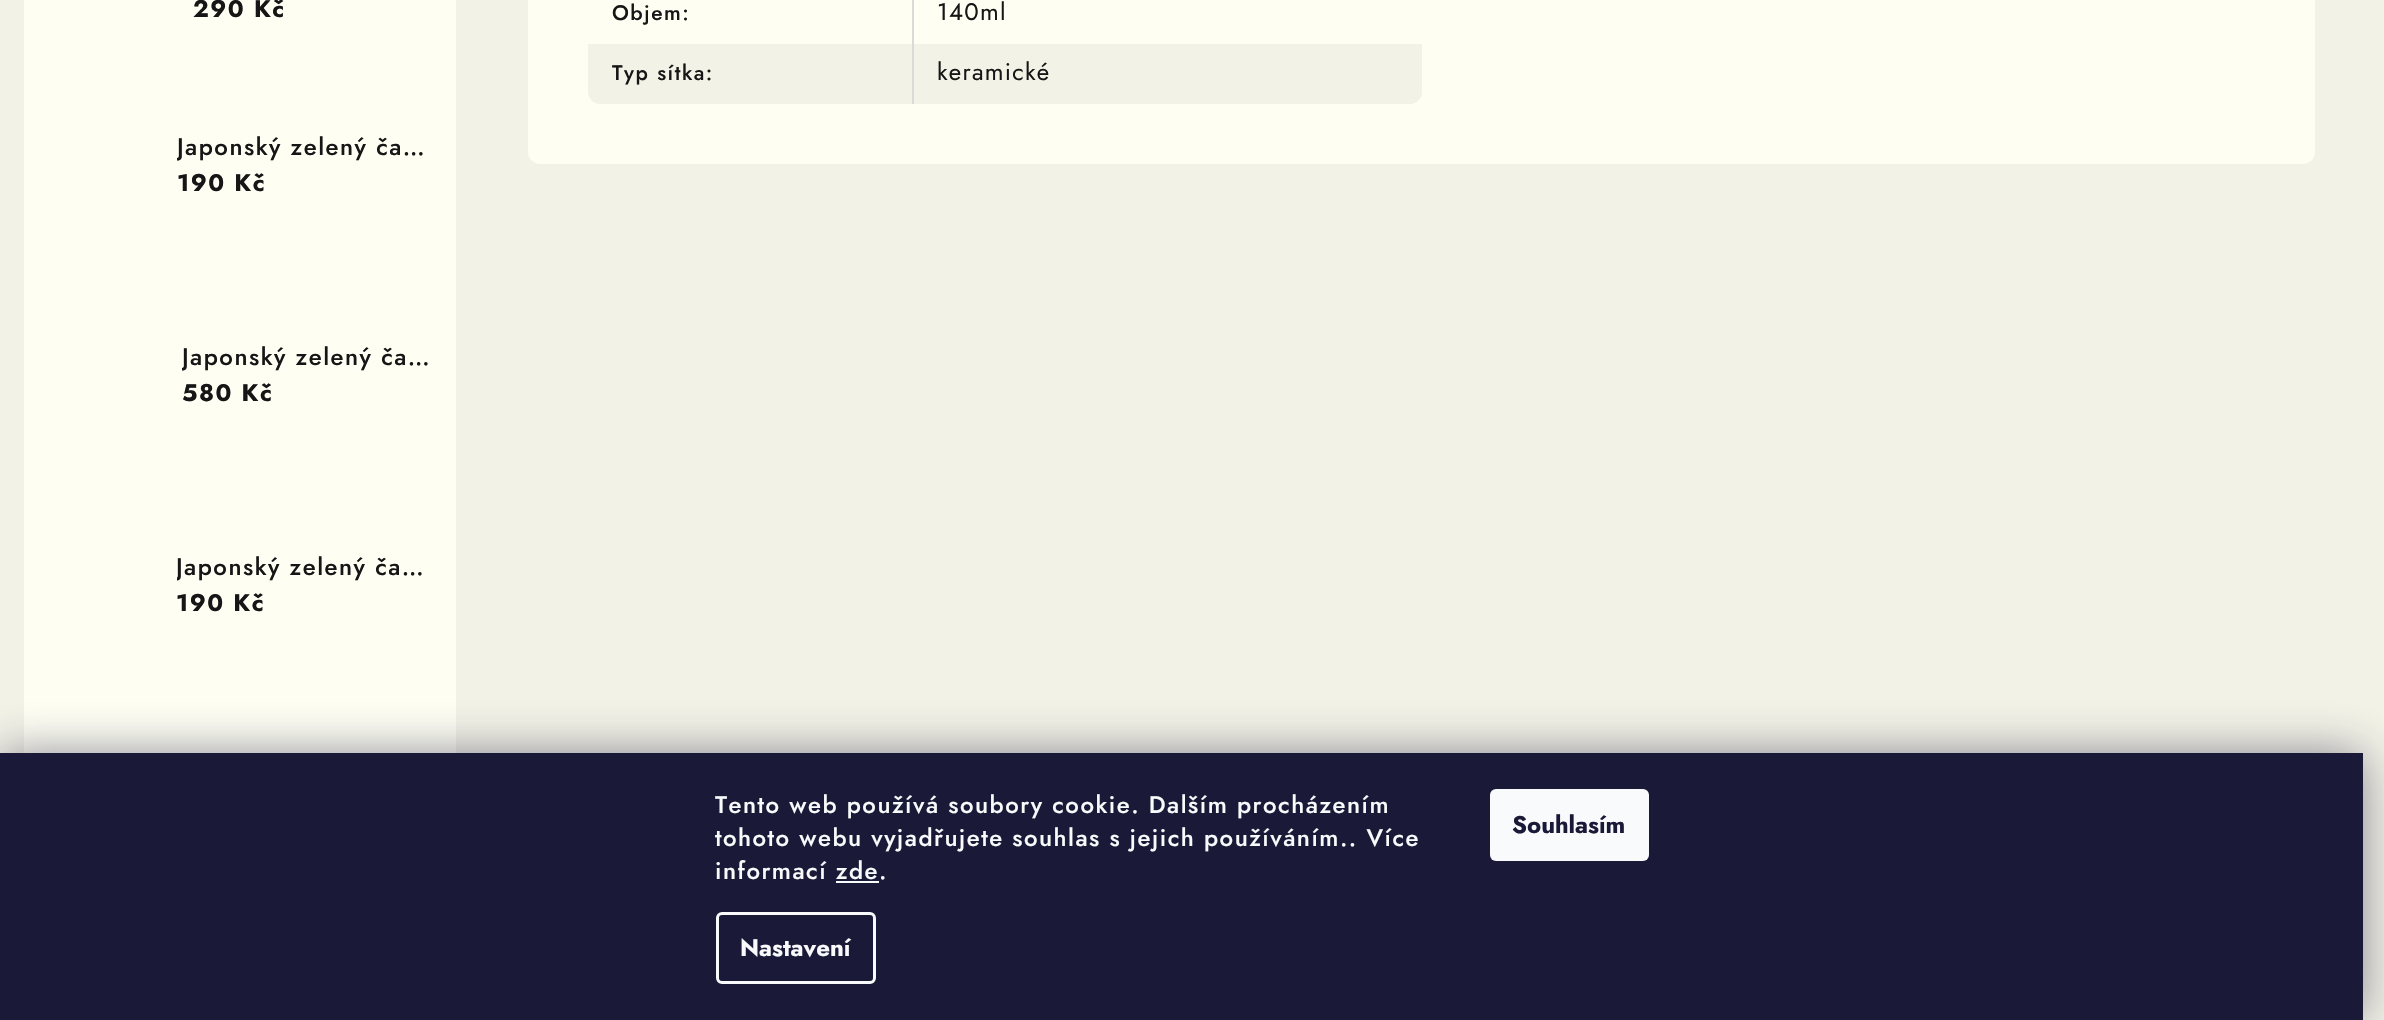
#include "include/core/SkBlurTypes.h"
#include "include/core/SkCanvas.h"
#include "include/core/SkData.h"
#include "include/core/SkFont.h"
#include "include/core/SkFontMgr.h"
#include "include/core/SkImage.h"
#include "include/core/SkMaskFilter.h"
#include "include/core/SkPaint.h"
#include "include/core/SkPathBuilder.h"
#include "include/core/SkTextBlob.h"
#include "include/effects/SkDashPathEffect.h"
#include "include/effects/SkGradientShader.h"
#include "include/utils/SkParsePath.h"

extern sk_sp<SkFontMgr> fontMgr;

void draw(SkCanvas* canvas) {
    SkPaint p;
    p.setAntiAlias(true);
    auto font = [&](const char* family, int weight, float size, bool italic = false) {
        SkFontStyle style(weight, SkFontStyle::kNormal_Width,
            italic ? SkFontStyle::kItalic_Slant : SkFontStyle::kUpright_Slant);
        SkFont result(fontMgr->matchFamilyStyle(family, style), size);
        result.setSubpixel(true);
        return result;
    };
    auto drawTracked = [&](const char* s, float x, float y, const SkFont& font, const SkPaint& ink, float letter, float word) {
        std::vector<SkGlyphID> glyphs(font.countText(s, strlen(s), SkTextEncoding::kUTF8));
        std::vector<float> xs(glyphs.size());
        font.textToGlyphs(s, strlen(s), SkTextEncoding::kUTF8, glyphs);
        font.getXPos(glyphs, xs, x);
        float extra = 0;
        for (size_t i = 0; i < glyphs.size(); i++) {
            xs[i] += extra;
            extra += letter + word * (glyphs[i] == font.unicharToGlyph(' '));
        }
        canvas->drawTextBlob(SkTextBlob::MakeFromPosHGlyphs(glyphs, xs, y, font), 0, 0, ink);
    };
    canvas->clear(0xFFF3F2E7);
    p.setColor(0xFFFEFEF3);
    canvas->drawRect(SkRect::MakeLTRB(24, 0, 456, 753), p);
    auto font1 = font("Jost", 700, 24);
    p.setColor(0xFF161616);
    drawTracked("290 Kč", 193, 17, font1, p, 1.5f, 0);
    canvas->save();
    canvas->clipRect(SkRect::MakeLTRB(177, 129, 432, 165));
    auto font2 = font("Jost", 500, 24);
    drawTracked("Japonský zelený ča…", 177, 155, font2, p, 1.5f, 0);
    canvas->restore();
    drawTracked("190 Kč", 177, 191, font1, p, 1.5f, 0);
    canvas->save();
    canvas->clipRect(SkRect::MakeLTRB(182, 339, 432, 375));
    drawTracked("Japonský zelený ča…", 182, 365, font2, p, 1.5f, 0);
    canvas->restore();
    drawTracked("580 Kč", 182, 401, font1, p, 1.5f, 0);
    canvas->save();
    canvas->clipRect(SkRect::MakeLTRB(177, 549, 432, 585));
    drawTracked("Japonský zelený ča…", 176, 575, font2, p, 1.5f, 0);
    canvas->restore();
    drawTracked("190 Kč", 176, 611, font1, p, 1.5f, 0);
    p.setColor(0xFFFEFEF3);
    canvas->drawRoundRect(SkRect::MakeLTRB(528, -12, 2315, 164), 12, 12, p);
    p.setColor(0xFFDADADA);
    canvas->drawRect(SkRect::MakeLTRB(912, 0, 914, 44), p);
    auto font3 = font("Jost", 500, 21);
    p.setColor(0xFF161616);
    drawTracked("Objem:", 612, 20, font3, p, 1.5f, 0);
    auto font4 = font("Jost", 400, 24);
    drawTracked("140ml", 937, 20, font4, p, 1.25f, 0);
    p.setColor(0xFFF3F2E7);
    canvas->drawPath(SkPathBuilder().moveTo(588, 44).lineTo(1422, 44).lineTo(1422, 92).cubicTo(1422, 98.5f, 1416.5f, 104, 1410, 104).lineTo(600, 104).cubicTo(593.5f, 104, 588, 98.5f, 588, 92).close().detach(), p);
    p.setColor(0xFFDADADA);
    canvas->drawRect(SkRect::MakeLTRB(912, 44, 914, 104), p);
    p.setColor(0xFF161616);
    drawTracked("Typ sítka:", 612, 80, font3, p, 1.5f, 0);
    drawTracked("keramické", 937, 80, font4, p, 1.25f, 0);
    p.setColor(0x801B1939);
    p.setMaskFilter(SkMaskFilter::MakeBlur(kNormal_SkBlurStyle, 22.5f));
    canvas->drawRect(SkRect::MakeLTRB(0, 753, 2363, 1020), p);
    p.setMaskFilter(nullptr);
    p.setColor(0xFF1A1937);
    canvas->drawRect(SkRect::MakeLTRB(0, 753, 2363, 1020), p);
    p.setColor(0xFFF8FAFB);
    {
        const struct { const char* s; float x, y; } items[] = {
            {"Tento web používá soubory cookie. Dalším procházením", 715, 813},
            {"tohoto webu vyjadřujete souhlas s jejich používáním.. Více", 715, 846},
            {"informací zde.", 715, 879},
        };
        for (auto [s, x, y] : items) {
            drawTracked(s, x, y, font2, p, 1.5f, 0);
        }
    }
    canvas->drawRect(SkRect::MakeLTRB(836, 881, 879, 883), p);
    p.setStyle(SkPaint::kStroke_Style);
    p.setStrokeWidth(3);
    canvas->drawRoundRect(SkRect::MakeLTRB(717.5f, 913.5f, 874.5f, 982.5f), 4.5f, 4.5f, p);
    p.setStyle(SkPaint::kFill_Style);
    canvas->drawString("Nastavení", 740, 956, font1, p);
    canvas->drawRoundRect(SkRect::MakeLTRB(1490, 789, 1649, 861), 6, 6, p);
    p.setColor(0xFF1A1937);
    canvas->drawString("Souhlasím", 1512, 833, font1, p);
}
